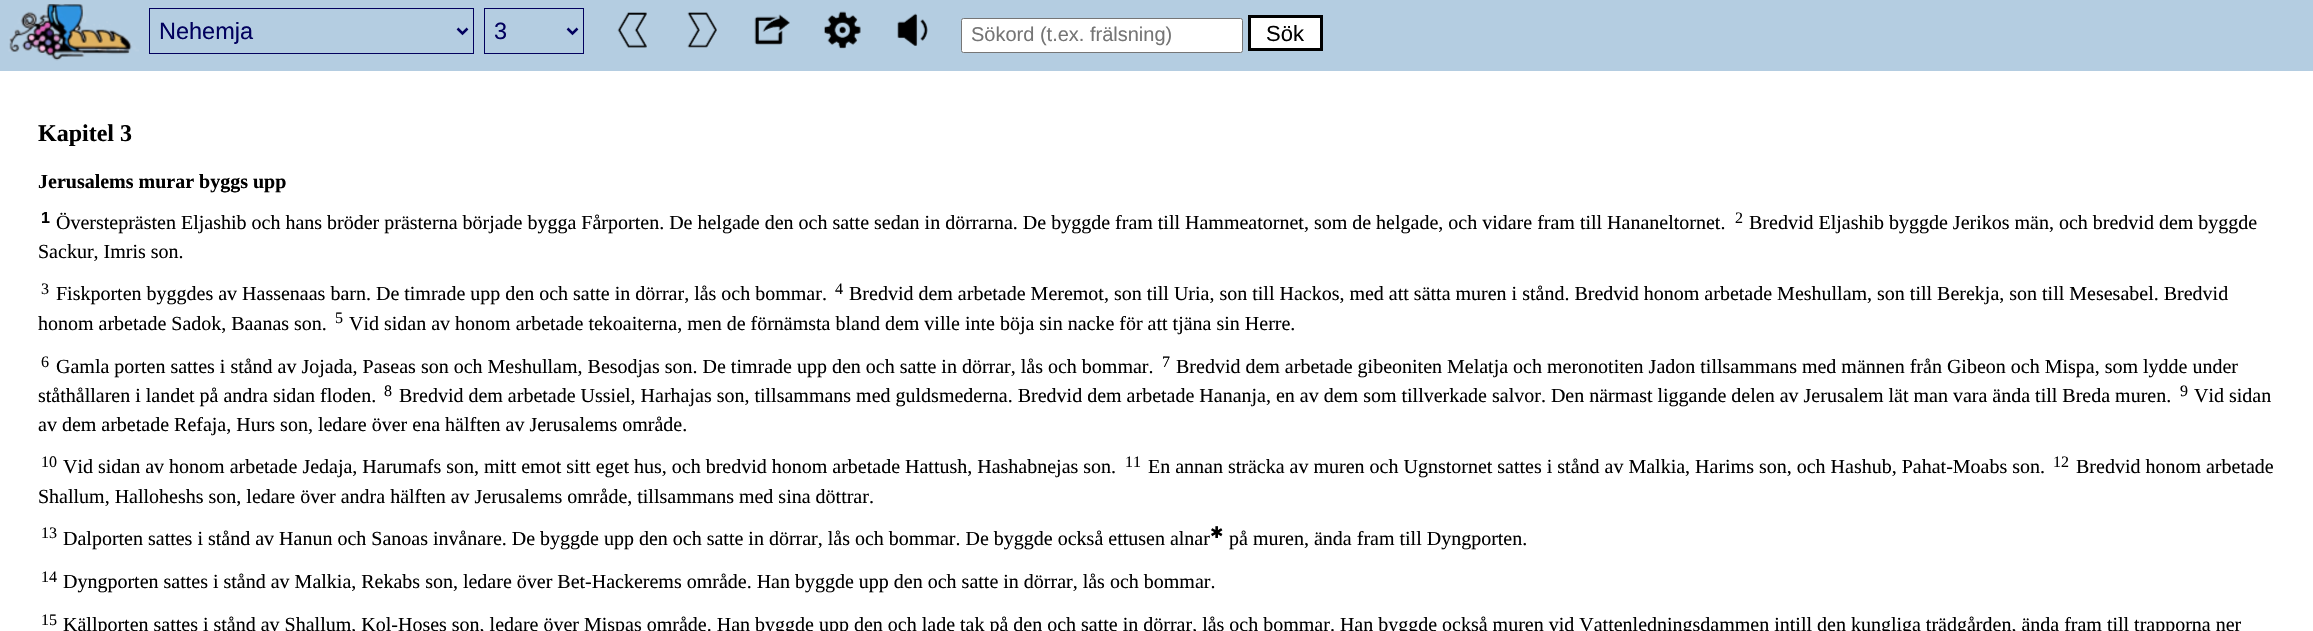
#include "include/core/SkBlurTypes.h"
#include "include/core/SkCanvas.h"
#include "include/core/SkData.h"
#include "include/core/SkFont.h"
#include "include/core/SkFontMgr.h"
#include "include/core/SkImage.h"
#include "include/core/SkMaskFilter.h"
#include "include/core/SkPaint.h"
#include "include/core/SkPathBuilder.h"
#include "include/core/SkTextBlob.h"
#include "include/effects/SkDashPathEffect.h"
#include "include/effects/SkGradientShader.h"
#include "include/utils/SkParsePath.h"

extern sk_sp<SkFontMgr> fontMgr;

void draw(SkCanvas* canvas) {
    SkPaint p;
    p.setAntiAlias(true);
    auto font = [&](const char* family, int weight, float size, bool italic = false) {
        SkFontStyle style(weight, SkFontStyle::kNormal_Width,
            italic ? SkFontStyle::kItalic_Slant : SkFontStyle::kUpright_Slant);
        SkFont result(fontMgr->matchFamilyStyle(family, style), size);
        result.setSubpixel(true);
        return result;
    };
    auto drawPhoto = [&](const char* path, float l, float t, float r, float b) {
        auto image = SkImages::DeferredFromEncodedData(SkData::MakeFromFileName(path));
        canvas->drawImageRect(image, SkRect::MakeLTRB(l, t, r, b), SkSamplingOptions());
    };
    canvas->clear(0xFFFFFFFF);
    p.setColor(0xFFB4CDE1);
    canvas->drawRect(SkRect::MakeLTRB(0, 0, 2313, 71), p);
    drawPhoto("media/1.png", 8, 4, 139, 61);
    p.setStyle(SkPaint::kStroke_Style);
    p.setStrokeWidth(1);
    p.setColor(0xFF01005E);
    canvas->drawRect(SkRect::MakeLTRB(149.5f, 8.5f, 473.5f, 53.5f), p);
    p.setStrokeWidth(2.5f);
    canvas->drawPath(SkPathBuilder().moveTo(457.5f, 28.5f).lineTo(462.5f, 33.5f).lineTo(467.5f, 28.5f).detach(), p);
    auto font1 = font("Liberation Sans", 400, 23.5f);
    p.setStyle(SkPaint::kFill_Style);
    canvas->drawString("Nehemja", 159, 39, font1, p);
    p.setStyle(SkPaint::kStroke_Style);
    p.setStrokeWidth(1);
    canvas->drawRect(SkRect::MakeLTRB(484.5f, 8.5f, 583.5f, 53.5f), p);
    p.setStrokeWidth(2.5f);
    canvas->drawPath(SkPathBuilder().moveTo(567.5f, 28.5f).lineTo(572.5f, 33.5f).lineTo(577.5f, 28.5f).detach(), p);
    p.setStyle(SkPaint::kFill_Style);
    canvas->drawString("3", 494, 39, font1, p);
    drawPhoto("media/2.png", 617, 12, 647, 48);
    drawPhoto("media/3.png", 687, 12, 717, 48);
    drawPhoto("media/4.png", 754, 14, 790, 45);
    drawPhoto("media/5.png", 824, 11, 861, 49);
    drawPhoto("media/6.png", 897, 13, 928, 46);
    p.setColor(0xFFFFFFFF);
    canvas->drawRoundRect(SkRect::MakeLTRB(961.5f, 18.5f, 1242.5f, 52.5f), 2, 2, p);
    p.setStyle(SkPaint::kStroke_Style);
    p.setStrokeWidth(1);
    p.setColor(0xFF767676);
    canvas->drawRoundRect(SkRect::MakeLTRB(961.5f, 18.5f, 1242.5f, 52.5f), 2, 2, p);
    auto font2 = font("Liberation Sans", 400, 20);
    p.setStyle(SkPaint::kFill_Style);
    p.setColor(0xFF757575);
    canvas->drawString("Sökord (t.ex. frälsning)", 971, 41, font2, p);
    p.setColor(0xFFFFFFFF);
    canvas->drawRect(SkRect::MakeLTRB(1249.5f, 16.5f, 1321.5f, 49.5f), p);
    p.setStyle(SkPaint::kStroke_Style);
    p.setStrokeWidth(3);
    p.setColor(0xFF000000);
    canvas->drawRect(SkRect::MakeLTRB(1249.5f, 16.5f, 1321.5f, 49.5f), p);
    auto font3 = font("Liberation Sans", 400, 22);
    p.setStyle(SkPaint::kFill_Style);
    canvas->drawString("Sök", 1266, 41, font3, p);
    auto font4 = font("Liberation Serif", 700, 24);
    canvas->drawString("Kapitel 3", 38, 141, font4, p);
    auto font5 = font("Liberation Serif", 700, 20);
    canvas->drawString("Jerusalems murar byggs upp", 38, 188, font5, p);
    auto font6 = font("Liberation Sans", 700, 16);
    canvas->drawString("1", 41, 223, font6, p);
    auto font7 = font("Liberation Serif", 400, 20);
    canvas->drawString("Översteprästen Eljashib och hans bröder prästerna började bygga Fårporten. De helgade den och satte sedan in dörrarna. De byggde fram till Hammeatornet, som de helgade, och vidare fram till Hananeltornet.", 56, 229, font7, p);
    auto font8 = font("Liberation Serif", 400, 16);
    canvas->drawString("2", 1735, 223, font8, p);
    canvas->drawString("Bredvid Eljashib byggde Jerikos män, och bredvid dem byggde", 1749, 229, font7, p);
    canvas->drawString("Sackur, Imris son.", 38, 258, font7, p);
    canvas->drawString("3", 41, 294, font8, p);
    canvas->drawString("Fiskporten byggdes av Hassenaas barn. De timrade upp den och satte in dörrar, lås och bommar.", 56, 300, font7, p);
    canvas->drawString("4", 835, 294, font8, p);
    canvas->drawString("Bredvid dem arbetade Meremot, son till Uria, son till Hackos, med att sätta muren i stånd. Bredvid honom arbetade Meshullam, son till Berekja, son till Mesesabel. Bredvid", 849, 300, font7, p);
    canvas->drawString("honom arbetade Sadok, Baanas son.", 38, 330, font7, p);
    canvas->drawString("5", 335, 323, font8, p);
    canvas->drawString("Vid sidan av honom arbetade tekoaiterna, men de förnämsta bland dem ville inte böja sin nacke för att tjäna sin Herre.", 349, 330, font7, p);
    canvas->drawString("6", 41, 367, font8, p);
    canvas->drawString("Gamla porten sattes i stånd av Jojada, Paseas son och Meshullam, Besodjas son. De timrade upp den och satte in dörrar, lås och bommar.", 56, 373, font7, p);
    canvas->drawString("7", 1162, 367, font8, p);
    canvas->drawString("Bredvid dem arbetade gibeoniten Melatja och meronotiten Jadon tillsammans med männen från Gibeon och Mispa, som lydde under", 1176, 373, font7, p);
    canvas->drawString("ståthållaren i landet på andra sidan floden.", 38, 402, font7, p);
    canvas->drawString("8", 384, 396, font8, p);
    canvas->drawString("Bredvid dem arbetade Ussiel, Harhajas son, tillsammans med guldsmederna. Bredvid dem arbetade Hananja, en av dem som tillverkade salvor. Den närmast liggande delen av Jerusalem lät man vara ända till Breda muren.", 399, 402, font7, p);
    canvas->drawString("9", 2180, 396, font8, p);
    canvas->drawString("Vid sidan", 2194, 402, font7, p);
    canvas->drawString("av dem arbetade Refaja, Hurs son, ledare över ena hälften av Jerusalems område.", 38, 431, font7, p);
    canvas->drawString("10", 41, 467, font8, p);
    canvas->drawString("Vid sidan av honom arbetade Jedaja, Harumafs son, mitt emot sitt eget hus, och bredvid honom arbetade Hattush, Hashabnejas son.", 63, 473, font7, p);
    canvas->drawString("11", 1125, 467, font8, p);
    canvas->drawString("En annan sträcka av muren och Ugnstornet sattes i stånd av Malkia, Harims son, och Hashub, Pahat-Moabs son.", 1148, 473, font7, p);
    canvas->drawString("12", 2053, 467, font8, p);
    canvas->drawString("Bredvid honom arbetade", 2076, 473, font7, p);
    canvas->drawString("Shallum, Halloheshs son, ledare över andra hälften av Jerusalems område, tillsammans med sina döttrar.", 38, 503, font7, p);
    canvas->drawString("13", 41, 538, font8, p);
    canvas->drawString("Dalporten sattes i stånd av Hanun och Sanoas invånare. De byggde upp den och satte in dörrar, lås och bommar. De byggde också ettusen alnar", 63, 545, font7, p);
    auto font9 = font("DejaVu Sans", 400, 16);
    canvas->drawString("✱", 1210, 538, font9, p);
    canvas->drawString("på muren, ända fram till Dyngporten.", 1229, 545, font7, p);
    canvas->drawString("14", 41, 582, font8, p);
    canvas->drawString("Dyngporten sattes i stånd av Malkia, Rekabs son, ledare över Bet-Hackerems område. Han byggde upp den och satte in dörrar, lås och bommar.", 63, 588, font7, p);
    canvas->drawString("15", 41, 625, font8, p);
    canvas->drawString("Källporten sattes i stånd av Shallum, Kol-Hoses son, ledare över Mispas område. Han byggde upp den och lade tak på den och satte in dörrar, lås och bommar. Han byggde också muren vid Vattenledningsdammen intill den kungliga trädgården, ända fram till trapporna ner", 63, 631, font7, p);
}
